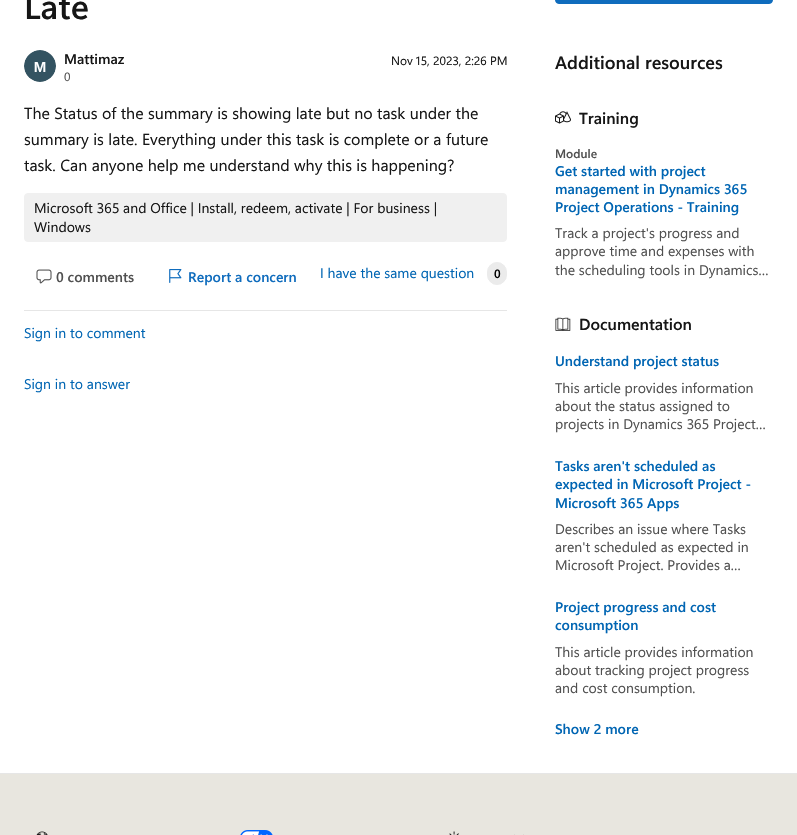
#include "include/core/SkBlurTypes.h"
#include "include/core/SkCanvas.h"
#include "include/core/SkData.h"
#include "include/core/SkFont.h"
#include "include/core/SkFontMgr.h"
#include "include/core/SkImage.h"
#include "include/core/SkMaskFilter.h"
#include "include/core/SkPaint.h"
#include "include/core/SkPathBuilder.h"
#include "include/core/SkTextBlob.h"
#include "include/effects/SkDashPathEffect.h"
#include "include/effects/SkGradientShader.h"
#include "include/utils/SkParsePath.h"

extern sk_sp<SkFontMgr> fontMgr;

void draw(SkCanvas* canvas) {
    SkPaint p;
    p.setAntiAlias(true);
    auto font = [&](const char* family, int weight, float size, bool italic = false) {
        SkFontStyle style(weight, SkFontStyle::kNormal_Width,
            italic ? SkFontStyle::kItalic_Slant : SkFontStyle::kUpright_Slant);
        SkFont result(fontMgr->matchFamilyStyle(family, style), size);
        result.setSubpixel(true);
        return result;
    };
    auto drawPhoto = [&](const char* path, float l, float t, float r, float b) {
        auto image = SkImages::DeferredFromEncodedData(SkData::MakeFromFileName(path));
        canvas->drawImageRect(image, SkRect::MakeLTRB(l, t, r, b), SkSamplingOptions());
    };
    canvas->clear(0xFFFFFFFF);
    auto font1 = font("Segoe UI", 600, 34);
    p.setColor(0xFF161616);
    canvas->drawString("Late", 24, 19, font1, p);
    p.setColor(0xFFF2F2F2);
    canvas->drawCircle(40, 66, 16, p);
    drawPhoto("media/1.png", 24, 50, 56, 82);
    auto font2 = font("Segoe UI", 600, 14);
    p.setColor(0xFF161616);
    canvas->drawString("Mattimaz", 64, 64, font2, p);
    auto font3 = font("Segoe UI", 400, 12);
    p.setColor(0xFF505050);
    canvas->drawString("0", 64, 81, font3, p);
    p.setColor(0xFF161616);
    canvas->drawString("Nov 15, 2023, 2:26 PM", 391, 65, font3, p);
    auto font4 = font("Segoe UI", 400, 16);
    {
        const struct { const char* s; float x, y; } items[] = {
            {"The Status of the summary is showing late but no task under the", 24, 119},
            {"summary is late. Everything under this task is complete or a future", 24, 145},
            {"task. Can anyone help me understand why this is happening?", 24, 171},
        };
        for (auto [s, x, y] : items) {
            canvas->drawString(s, x, y, font4, p);
        }
    }
    p.setColor(0xFFF0F0F0);
    canvas->drawRoundRect(SkRect::MakeLTRB(24.5f, 193.5f, 506.5f, 241.5f), 3.5f, 3.5f, p);
    p.setStyle(SkPaint::kStroke_Style);
    p.setStrokeWidth(1);
    canvas->drawRoundRect(SkRect::MakeLTRB(24.5f, 193.5f, 506.5f, 241.5f), 3.5f, 3.5f, p);
    auto font5 = font("Segoe UI", 400, 14);
    p.setStyle(SkPaint::kFill_Style);
    p.setColor(0xFF161616);
    canvas->drawString("Microsoft 365 and Office | Install, redeem, activate | For business |", 34, 213, font5, p);
    canvas->drawString("Windows", 34, 232, font5, p);
    drawPhoto("media/2.png", 36, 269, 52, 284);
    p.setColor(0xFF505050);
    canvas->drawString("0 comments", 56, 282, font2, p);
    drawPhoto("media/3.png", 169, 269, 182, 283);
    p.setColor(0xFF0F6CBD);
    canvas->drawString("Report a concern", 188, 282, font2, p);
    p.setColor(0xFF0065B3);
    canvas->drawString("I have the same question", 320, 278, font5, p);
    p.setColor(0xFFEBEBEB);
    canvas->drawRoundRect(SkRect::MakeLTRB(487.5f, 262.5f, 506.5f, 284.5f), 9.5f, 9.5f, p);
    p.setStyle(SkPaint::kStroke_Style);
    canvas->drawRoundRect(SkRect::MakeLTRB(487.5f, 262.5f, 506.5f, 284.5f), 9.5f, 9.5f, p);
    auto font6 = font("Segoe UI", 600, 12);
    p.setStyle(SkPaint::kFill_Style);
    p.setColor(0xFF000000);
    canvas->drawString("0", 494, 278, font6, p);
    p.setColor(0xFFE6E6E6);
    canvas->drawRect(SkRect::MakeLTRB(24, 310, 507, 311), p);
    p.setColor(0xFF0065B3);
    canvas->drawString("Sign in to comment", 24, 338, font5, p);
    canvas->drawString("Sign in to answer", 24, 389, font5, p);
    p.setColor(0xFF0F6CBD);
    canvas->drawRoundRect(SkRect::MakeLTRB(555.5f, -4.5f, 772.5f, 3.5f), 3.5f, 3.5f, p);
    p.setStyle(SkPaint::kStroke_Style);
    canvas->drawRoundRect(SkRect::MakeLTRB(555.5f, -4.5f, 772.5f, 3.5f), 3.5f, 3.5f, p);
    auto font7 = font("Segoe UI", 600, 18);
    p.setStyle(SkPaint::kFill_Style);
    p.setColor(0xFF161616);
    canvas->drawString("Additional resources", 555, 69, font7, p);
    drawPhoto("media/4.png", 555, 111, 571, 124);
    auto font8 = font("Segoe UI", 600, 16);
    canvas->drawString("Training", 579, 124, font8, p);
    p.setColor(0xFF505050);
    canvas->drawString("Module", 555, 158, font6, p);
    p.setColor(0xFF0065B3);
    {
        const struct { const char* s; float x, y; } items[] = {
            {"Get started with project", 555, 176},
            {"management in Dynamics 365", 555, 194},
            {"Project Operations - Training", 555, 212},
        };
        for (auto [s, x, y] : items) {
            canvas->drawString(s, x, y, font2, p);
        }
    }
    p.setColor(0xFF505050);
    {
        const struct { const char* s; float x, y; } items[] = {
            {"Track a project's progress and", 555, 238},
            {"approve time and expenses with", 555, 256},
            {"the scheduling tools in Dynamics…", 555, 275},
        };
        for (auto [s, x, y] : items) {
            canvas->drawString(s, x, y, font5, p);
        }
    }
    drawPhoto("media/5.png", 555, 317, 571, 331);
    p.setColor(0xFF161616);
    canvas->drawString("Documentation", 579, 330, font8, p);
    p.setColor(0xFF0065B3);
    canvas->drawString("Understand project status", 555, 366, font2, p);
    p.setColor(0xFF505050);
    {
        const struct { const char* s; float x, y; } items[] = {
            {"This article provides information", 555, 393},
            {"about the status assigned to", 555, 411},
            {"projects in Dynamics 365 Project…", 555, 429},
        };
        for (auto [s, x, y] : items) {
            canvas->drawString(s, x, y, font5, p);
        }
    }
    p.setColor(0xFF0065B3);
    {
        const struct { const char* s; float x, y; } items[] = {
            {"Tasks aren't scheduled as", 555, 471},
            {"expected in Microsoft Project -", 555, 489},
            {"Microsoft 365 Apps", 555, 508},
        };
        for (auto [s, x, y] : items) {
            canvas->drawString(s, x, y, font2, p);
        }
    }
    p.setColor(0xFF505050);
    {
        const struct { const char* s; float x, y; } items[] = {
            {"Describes an issue where Tasks", 555, 534},
            {"aren't scheduled as expected in", 555, 552},
            {"Microsoft Project. Provides a…", 555, 570},
        };
        for (auto [s, x, y] : items) {
            canvas->drawString(s, x, y, font5, p);
        }
    }
    p.setColor(0xFF0065B3);
    canvas->drawString("Project progress and cost", 555, 612, font2, p);
    canvas->drawString("consumption", 555, 630, font2, p);
    p.setColor(0xFF505050);
    {
        const struct { const char* s; float x, y; } items[] = {
            {"This article provides information", 555, 657},
            {"about tracking project progress", 555, 675},
            {"and cost consumption.", 555, 693},
        };
        for (auto [s, x, y] : items) {
            canvas->drawString(s, x, y, font5, p);
        }
    }
    p.setColor(0xFF0065B3);
    canvas->drawString("Show 2 more", 555, 734, font2, p);
    p.setColor(0xFFE8E6DF);
    canvas->drawRect(SkRect::MakeLTRB(0, 774, 797, 835), p);
    p.setColor(0xFFE6E6E6);
    canvas->drawRect(SkRect::MakeLTRB(0, 773, 797, 774), p);
    drawPhoto("media/6.png", 36, 831, 48, 835);
    drawPhoto("media/7.png", 240, 830, 273, 835);
    drawPhoto("media/8.png", 449, 831, 459, 835);
    drawPhoto("media/9.png", 514, 834, 524, 835);
}
